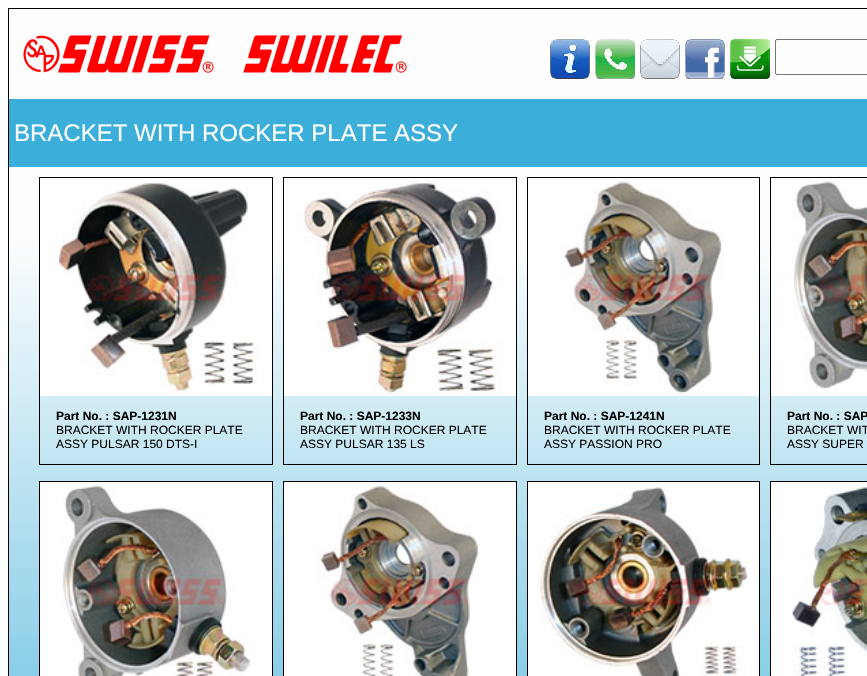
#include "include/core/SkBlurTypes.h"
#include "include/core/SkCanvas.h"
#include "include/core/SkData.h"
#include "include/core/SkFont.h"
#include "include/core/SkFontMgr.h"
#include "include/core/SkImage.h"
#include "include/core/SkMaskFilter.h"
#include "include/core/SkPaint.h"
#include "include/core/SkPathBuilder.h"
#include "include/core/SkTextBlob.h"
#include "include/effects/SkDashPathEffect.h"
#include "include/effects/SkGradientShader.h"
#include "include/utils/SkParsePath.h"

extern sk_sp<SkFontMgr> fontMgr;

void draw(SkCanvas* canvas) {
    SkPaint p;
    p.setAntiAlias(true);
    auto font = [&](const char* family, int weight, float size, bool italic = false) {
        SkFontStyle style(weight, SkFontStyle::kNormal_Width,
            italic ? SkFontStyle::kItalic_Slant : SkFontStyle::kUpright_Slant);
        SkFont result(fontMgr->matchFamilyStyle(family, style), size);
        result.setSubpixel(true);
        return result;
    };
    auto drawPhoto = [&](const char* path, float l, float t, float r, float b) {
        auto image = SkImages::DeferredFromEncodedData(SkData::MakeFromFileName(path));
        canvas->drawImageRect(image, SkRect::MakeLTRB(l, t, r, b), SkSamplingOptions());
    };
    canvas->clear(0xFFFFFFFF);
    drawPhoto("media/1.png", 9, 9, 867, 676);
    p.setStyle(SkPaint::kStroke_Style);
    p.setStrokeWidth(1);
    p.setColor(0xFF000000);
    canvas->drawRect(SkRect::MakeLTRB(8.5f, 8.5f, 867.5f, 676.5f), p);
    drawPhoto("media/2.png", 23, 35, 407, 73);
    drawPhoto("media/3.png", 550, 39, 590, 79);
    drawPhoto("media/4.png", 595, 39, 635, 79);
    drawPhoto("media/5.png", 640, 39, 680, 79);
    drawPhoto("media/6.png", 685, 39, 725, 79);
    drawPhoto("media/7.png", 730, 39, 770, 79);
    p.setColor(0xFF767676);
    canvas->drawRoundRect(SkRect::MakeLTRB(775.5f, 39.5f, 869.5f, 74.5f), 1.5f, 1.5f, p);
    p.setStyle(SkPaint::kFill_Style);
    p.setColor(0xFF3BAEDA);
    canvas->drawRect(SkRect::MakeLTRB(9, 99, 867, 167), p);
    auto font1 = font("Liberation Sans", 400, 24);
    p.setColor(0xFFFFFFFF);
    canvas->drawString("BRACKET WITH ROCKER PLATE ASSY", 14, 141, font1, p);
    p.setStyle(SkPaint::kStroke_Style);
    p.setColor(0xFF000000);
    canvas->drawRect(SkRect::MakeLTRB(39.5f, 177.5f, 272.5f, 464.5f), p);
    drawPhoto("media/8.png", 40, 178, 272, 396);
    auto font2 = font("Liberation Sans", 700, 12);
    p.setStyle(SkPaint::kFill_Style);
    canvas->drawString("Part No. : SAP-1231N", 56, 420, font2, p);
    auto font3 = font("Liberation Sans", 400, 12);
    canvas->drawString("BRACKET WITH ROCKER PLATE", 56, 434, font3, p);
    canvas->drawString("ASSY PULSAR 150 DTS-I", 56, 448, font3, p);
    p.setStyle(SkPaint::kStroke_Style);
    canvas->drawRect(SkRect::MakeLTRB(283.5f, 177.5f, 516.5f, 464.5f), p);
    drawPhoto("media/9.png", 284, 181, 516, 396);
    p.setStyle(SkPaint::kFill_Style);
    canvas->drawString("Part No. : SAP-1233N", 300, 420, font2, p);
    canvas->drawString("BRACKET WITH ROCKER PLATE", 300, 434, font3, p);
    canvas->drawString("ASSY PULSAR 135 LS", 300, 448, font3, p);
    p.setStyle(SkPaint::kStroke_Style);
    canvas->drawRect(SkRect::MakeLTRB(527.5f, 177.5f, 759.5f, 464.5f), p);
    drawPhoto("media/10.png", 528, 178, 759, 396);
    p.setStyle(SkPaint::kFill_Style);
    canvas->drawString("Part No. : SAP-1241N", 544, 420, font2, p);
    canvas->drawString("BRACKET WITH ROCKER PLATE", 544, 434, font3, p);
    canvas->drawString("ASSY PASSION PRO", 544, 448, font3, p);
    p.setStyle(SkPaint::kStroke_Style);
    canvas->drawRect(SkRect::MakeLTRB(770.5f, 177.5f, 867.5f, 464.5f), p);
    drawPhoto("media/11.png", 771, 181, 867, 396);
    p.setStyle(SkPaint::kFill_Style);
    canvas->drawString("Part No. : SAP", 787, 420, font2, p);
    canvas->drawString("BRACKET WIT", 787, 434, font3, p);
    canvas->drawString("ASSY SUPER", 787, 448, font3, p);
    p.setStyle(SkPaint::kStroke_Style);
    canvas->drawRect(SkRect::MakeLTRB(39.5f, 481.5f, 272.5f, 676.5f), p);
    drawPhoto("media/12.png", 40, 482, 272, 676);
    canvas->drawRect(SkRect::MakeLTRB(283.5f, 481.5f, 516.5f, 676.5f), p);
    drawPhoto("media/13.png", 284, 482, 516, 676);
    canvas->drawRect(SkRect::MakeLTRB(527.5f, 481.5f, 759.5f, 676.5f), p);
    drawPhoto("media/14.png", 528, 482, 759, 676);
    canvas->drawRect(SkRect::MakeLTRB(770.5f, 481.5f, 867.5f, 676.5f), p);
    drawPhoto("media/15.png", 771, 482, 867, 676);
}
